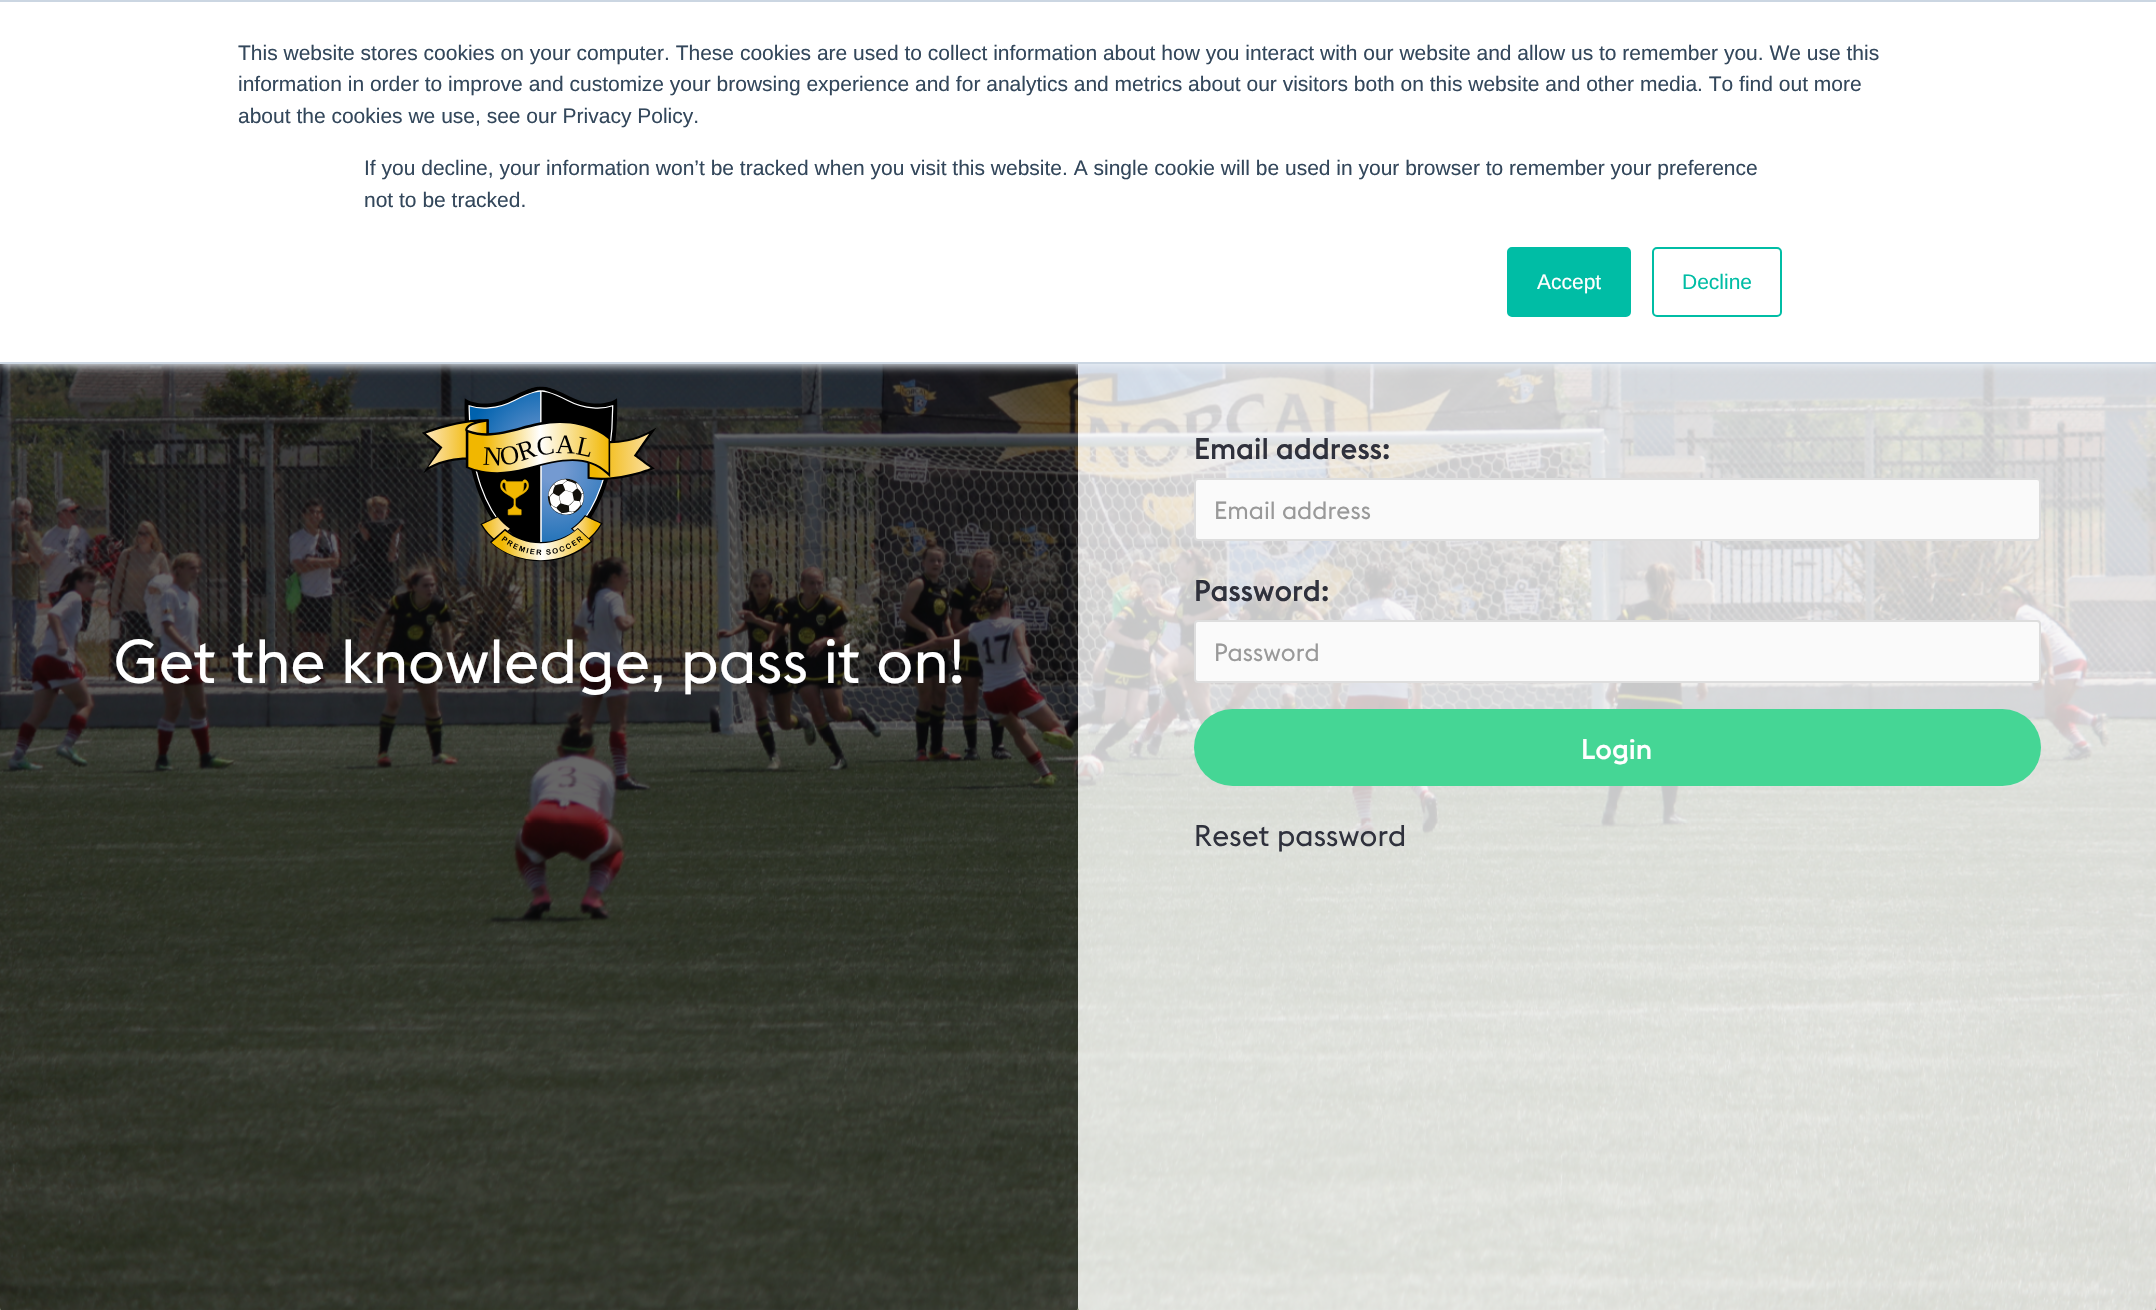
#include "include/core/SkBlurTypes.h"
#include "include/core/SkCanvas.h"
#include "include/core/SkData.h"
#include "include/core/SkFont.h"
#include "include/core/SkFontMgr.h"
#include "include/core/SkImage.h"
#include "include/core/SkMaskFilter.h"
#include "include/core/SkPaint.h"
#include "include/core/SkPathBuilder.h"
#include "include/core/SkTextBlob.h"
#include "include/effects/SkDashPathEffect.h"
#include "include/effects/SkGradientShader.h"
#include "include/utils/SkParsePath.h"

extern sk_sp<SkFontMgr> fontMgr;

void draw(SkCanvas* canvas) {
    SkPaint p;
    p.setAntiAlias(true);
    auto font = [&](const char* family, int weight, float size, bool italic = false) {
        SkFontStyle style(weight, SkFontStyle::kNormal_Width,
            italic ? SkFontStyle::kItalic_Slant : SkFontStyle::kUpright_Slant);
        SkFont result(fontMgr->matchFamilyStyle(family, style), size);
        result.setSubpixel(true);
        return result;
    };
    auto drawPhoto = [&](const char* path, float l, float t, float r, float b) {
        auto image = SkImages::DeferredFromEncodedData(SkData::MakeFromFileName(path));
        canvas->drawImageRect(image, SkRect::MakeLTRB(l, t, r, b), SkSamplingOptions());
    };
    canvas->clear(0xFFFFFFFF);
    drawPhoto("media/1.png", 0, 364, 2156, 1310);
    p.setColor(0x99000000);
    canvas->drawRoundRect(SkRect::MakeLTRB(0, 0, 1078, 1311), 4, 4, p);
    p.setColor(0xCCF5F5F5);
    canvas->drawRoundRect(SkRect::MakeLTRB(1078, 0, 2156, 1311), 4, 4, p);
    p.setColor(0xFFEAF0F6);
    p.setMaskFilter(SkMaskFilter::MakeBlur(kNormal_SkBlurStyle, 4.5f));
    canvas->drawRect(SkRect::MakeLTRB(0, 2, 2156, 366), p);
    p.setMaskFilter(nullptr);
    {
        const struct { float l, t, r, b; SkColor color; } items[] = {
            {0, 2, 2156, 362, 0xFFFFFFFF},
            {0, 0, 2156, 2, 0xFFCBD6E2},
            {0, 362, 2156, 364, 0xFFCBD6E2},
        };
        for (auto [l, t, r, b, color] : items) {
            p.setColor(color);
            canvas->drawRect(SkRect::MakeLTRB(l, t, r, b), p);
        }
    }
    auto font1 = font("Liberation Sans", 400, 21);
    p.setColor(0xFF33475B);
    {
        const struct { const char* s; float x, y; } items[] = {
            {"This website stores cookies on your computer. These cookies are used to collect information about how you interact with our website and allow us to remember you. We use this", 238, 60},
            {"information in order to improve and customize your browsing experience and for analytics and metrics about our visitors both on this website and other media. To find out more", 238, 91},
            {"about the cookies we use, see our Privacy Policy.", 238, 123},
            {"If you decline, your information won’t be tracked when you visit this website. A single cookie will be used in your browser to remember your preference", 364, 175},
            {"not to be tracked.", 364, 207},
        };
        for (auto [s, x, y] : items) {
            canvas->drawString(s, x, y, font1, p);
        }
    }
    p.setColor(0xFF00BDA5);
    canvas->drawRoundRect(SkRect::MakeLTRB(1508, 248, 1630, 316), 4, 4, p);
    p.setStyle(SkPaint::kStroke_Style);
    p.setStrokeWidth(2);
    canvas->drawRoundRect(SkRect::MakeLTRB(1508, 248, 1630, 316), 4, 4, p);
    p.setStyle(SkPaint::kFill_Style);
    p.setColor(0xFFFFFFFF);
    canvas->drawString("Accept", 1537, 289, font1, p);
    p.setStyle(SkPaint::kStroke_Style);
    p.setColor(0xFF00BDA5);
    canvas->drawRoundRect(SkRect::MakeLTRB(1653, 248, 1781, 316), 4, 4, p);
    p.setStyle(SkPaint::kFill_Style);
    canvas->drawString("Decline", 1682, 289, font1, p);
    drawPhoto("media/2.png", 422, 386, 656, 562);
    auto font2 = font("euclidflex", 400, 61.25f);
    p.setColor(0xFFFFFFFF);
    canvas->drawString("Get the knowledge, pass it on!", 114, 683, font2, p);
    auto font3 = font("euclidflex", 500, 29.5f);
    p.setColor(0xFF2F313C);
    canvas->drawString("Email address:", 1194, 459, font3, p);
    p.setColor(0xFFFAFAFA);
    canvas->drawRoundRect(SkRect::MakeLTRB(1195, 479, 2040, 540), 3, 3, p);
    p.setStyle(SkPaint::kStroke_Style);
    p.setColor(0xFFDDDDDD);
    canvas->drawRoundRect(SkRect::MakeLTRB(1195, 479, 2040, 540), 3, 3, p);
    auto font4 = font("euclidflex", 400, 24.5f);
    p.setStyle(SkPaint::kFill_Style);
    p.setColor(0xFF999999);
    canvas->drawString("Email address", 1214, 519, font4, p);
    p.setColor(0xFF2F313C);
    canvas->drawString("Password:", 1194, 601, font3, p);
    p.setColor(0xFFFAFAFA);
    canvas->drawRoundRect(SkRect::MakeLTRB(1195, 621, 2040, 682), 3, 3, p);
    p.setStyle(SkPaint::kStroke_Style);
    p.setColor(0xFFDDDDDD);
    canvas->drawRoundRect(SkRect::MakeLTRB(1195, 621, 2040, 682), 3, 3, p);
    p.setStyle(SkPaint::kFill_Style);
    p.setColor(0xFF999999);
    canvas->drawString("Password", 1214, 661, font4, p);
    p.setColor(0xFF45D695);
    canvas->drawRoundRect(SkRect::MakeLTRB(1194, 709, 2041, 786), 38.5f, 38.5f, p);
    auto font5 = font("euclidflex", 500, 28);
    p.setColor(0xFFFFFFFF);
    canvas->drawString("Login", 1581, 759, font5, p);
    auto font6 = font("euclidflex", 400, 29.5f);
    p.setColor(0xFF2F313C);
    canvas->drawString("Reset password", 1194, 846, font6, p);
}
